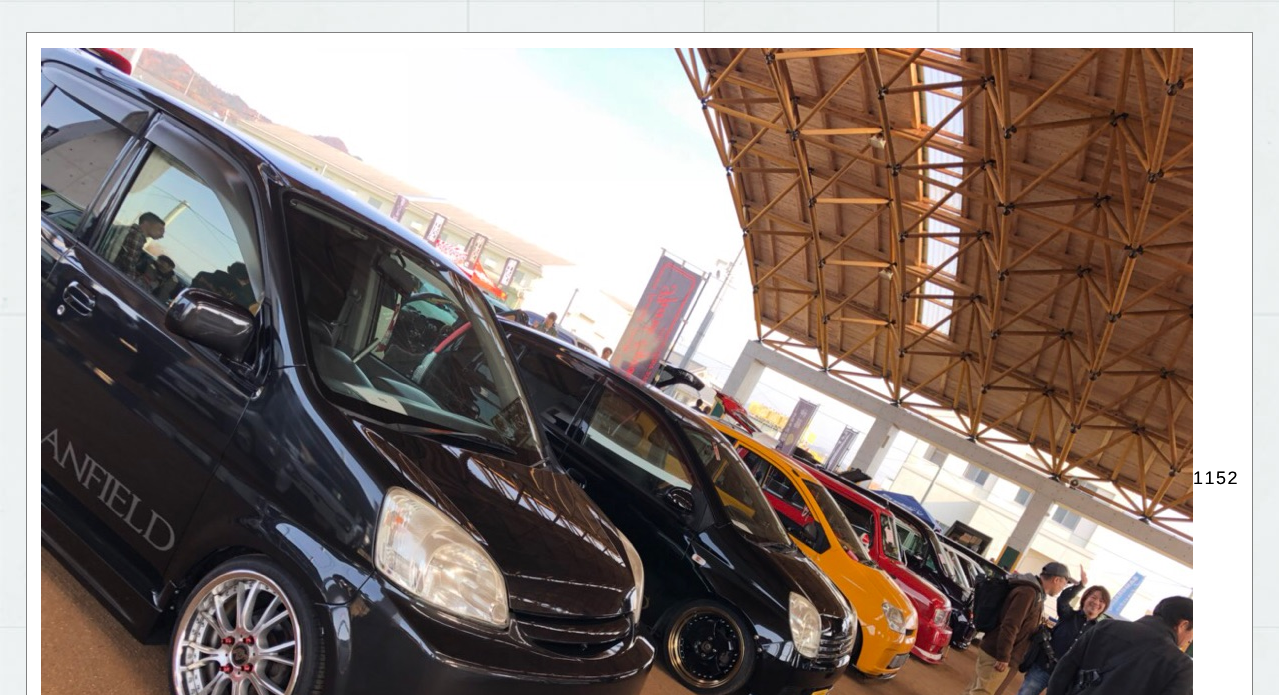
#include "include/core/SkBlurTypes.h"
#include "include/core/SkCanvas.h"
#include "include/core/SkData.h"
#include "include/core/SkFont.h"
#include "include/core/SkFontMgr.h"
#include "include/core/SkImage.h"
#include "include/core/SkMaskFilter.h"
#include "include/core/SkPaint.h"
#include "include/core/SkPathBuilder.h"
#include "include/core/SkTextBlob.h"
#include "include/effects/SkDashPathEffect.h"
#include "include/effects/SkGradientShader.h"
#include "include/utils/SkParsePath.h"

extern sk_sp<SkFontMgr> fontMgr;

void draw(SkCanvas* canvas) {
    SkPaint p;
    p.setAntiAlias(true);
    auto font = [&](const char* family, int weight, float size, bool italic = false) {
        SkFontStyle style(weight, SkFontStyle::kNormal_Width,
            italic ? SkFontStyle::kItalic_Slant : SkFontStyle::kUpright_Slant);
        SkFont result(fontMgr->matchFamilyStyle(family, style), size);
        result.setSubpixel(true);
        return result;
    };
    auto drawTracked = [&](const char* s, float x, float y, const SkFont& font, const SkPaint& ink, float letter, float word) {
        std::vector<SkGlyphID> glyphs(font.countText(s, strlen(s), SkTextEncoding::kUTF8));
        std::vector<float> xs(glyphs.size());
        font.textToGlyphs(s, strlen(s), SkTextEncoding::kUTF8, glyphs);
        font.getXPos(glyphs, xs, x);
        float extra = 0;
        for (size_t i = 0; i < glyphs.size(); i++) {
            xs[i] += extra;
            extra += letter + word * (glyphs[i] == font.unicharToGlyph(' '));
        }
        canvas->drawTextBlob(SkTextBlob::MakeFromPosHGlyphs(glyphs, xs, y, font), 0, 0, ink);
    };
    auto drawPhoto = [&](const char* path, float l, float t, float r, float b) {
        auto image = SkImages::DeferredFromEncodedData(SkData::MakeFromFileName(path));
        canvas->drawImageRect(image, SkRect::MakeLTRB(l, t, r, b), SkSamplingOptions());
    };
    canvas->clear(0xFFFFFFFF);
    drawPhoto("media/1.png", 0, 0, 1279, 695);
    p.setColor(0xFFFFFFFF);
    canvas->drawRect(SkRect::MakeLTRB(26.5f, 32.5f, 1252.5f, 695.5f), p);
    p.setStyle(SkPaint::kStroke_Style);
    p.setStrokeWidth(1);
    p.setColor(0xFF808080);
    canvas->drawRect(SkRect::MakeLTRB(26.5f, 32.5f, 1252.5f, 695.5f), p);
    drawPhoto("media/2.png", 41, 48, 1193, 695);
    auto font1 = font("Liberation Sans", 400, 18);
    p.setStyle(SkPaint::kFill_Style);
    p.setColor(0xFF000000);
    drawTracked("1152", 1193, 484, font1, p, 1.5f, 0);
}
